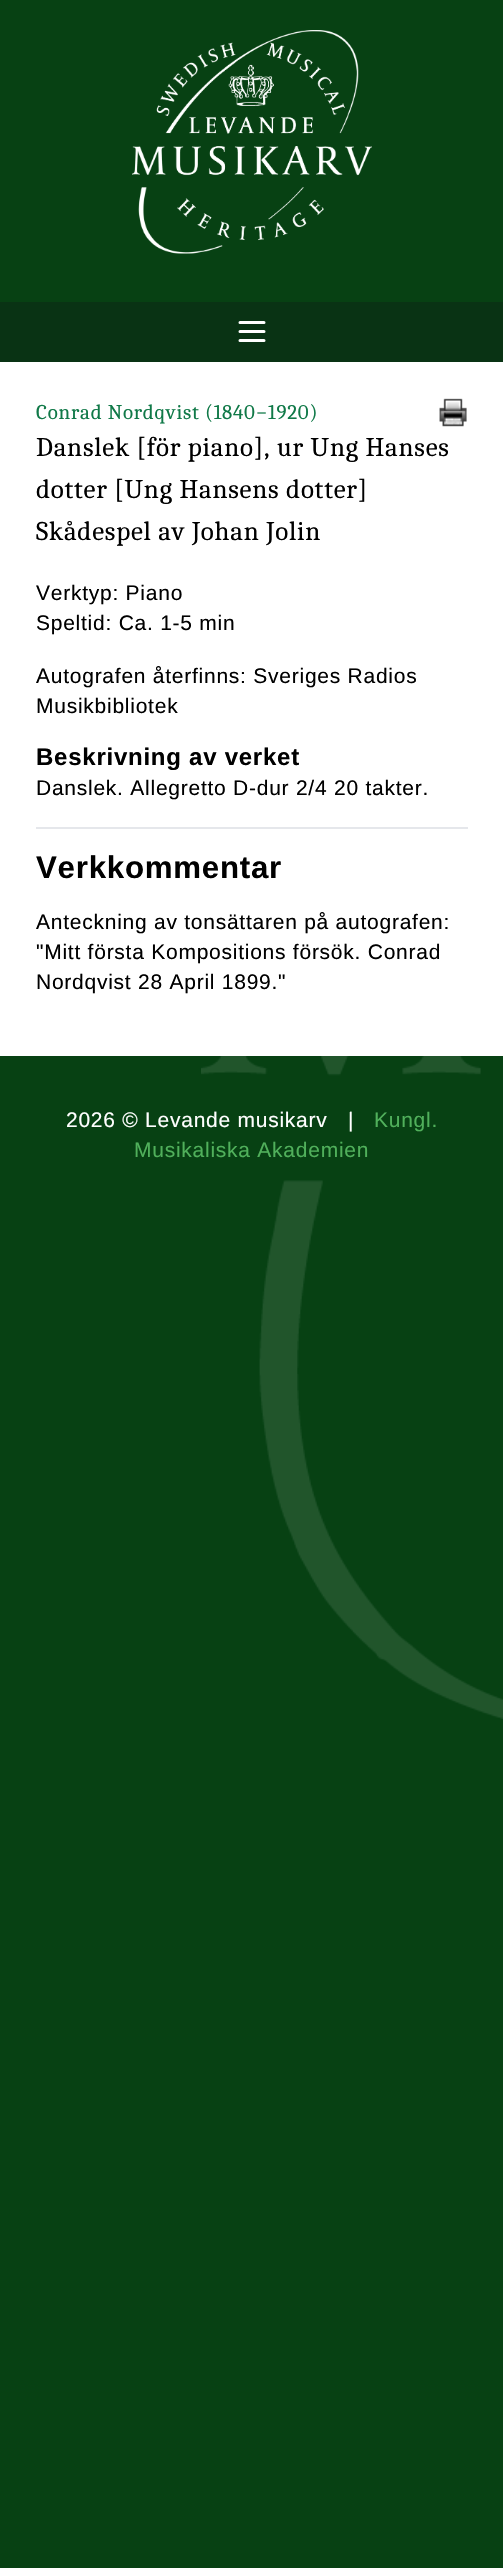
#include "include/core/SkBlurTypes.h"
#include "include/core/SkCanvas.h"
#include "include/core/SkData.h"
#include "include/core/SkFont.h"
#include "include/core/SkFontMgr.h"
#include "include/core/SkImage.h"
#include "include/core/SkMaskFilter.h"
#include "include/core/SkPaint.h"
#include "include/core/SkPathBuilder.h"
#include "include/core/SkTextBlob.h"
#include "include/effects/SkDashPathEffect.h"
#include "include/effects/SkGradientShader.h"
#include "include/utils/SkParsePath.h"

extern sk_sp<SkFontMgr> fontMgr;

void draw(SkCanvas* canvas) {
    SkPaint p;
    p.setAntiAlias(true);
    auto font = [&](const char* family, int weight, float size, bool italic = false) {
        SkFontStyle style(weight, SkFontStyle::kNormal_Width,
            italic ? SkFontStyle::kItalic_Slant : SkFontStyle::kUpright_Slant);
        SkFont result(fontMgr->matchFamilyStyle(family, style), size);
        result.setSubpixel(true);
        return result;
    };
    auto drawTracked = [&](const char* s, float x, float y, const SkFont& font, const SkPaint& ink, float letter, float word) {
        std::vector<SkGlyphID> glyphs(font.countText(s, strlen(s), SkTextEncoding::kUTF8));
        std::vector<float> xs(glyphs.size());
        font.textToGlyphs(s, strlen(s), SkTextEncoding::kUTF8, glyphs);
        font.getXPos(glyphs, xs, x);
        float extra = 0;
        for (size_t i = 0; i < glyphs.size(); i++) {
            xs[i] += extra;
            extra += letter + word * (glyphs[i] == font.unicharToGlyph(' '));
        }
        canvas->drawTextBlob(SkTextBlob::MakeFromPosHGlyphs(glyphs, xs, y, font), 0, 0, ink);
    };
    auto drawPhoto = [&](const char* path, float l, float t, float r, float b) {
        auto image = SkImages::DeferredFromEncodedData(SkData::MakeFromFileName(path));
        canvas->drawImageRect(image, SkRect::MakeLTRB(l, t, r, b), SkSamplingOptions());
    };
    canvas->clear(0xFF074113);
    drawPhoto("media/1.png", 132, 30, 372, 254);
    p.setColor(0xFF093314);
    canvas->drawRect(SkRect::MakeLTRB(0, 302, 503, 362), p);
    p.setStyle(SkPaint::kStroke_Style);
    p.setStrokeWidth(3);
    p.setStrokeCap(SkPaint::kRound_Cap);
    p.setStrokeJoin(SkPaint::kRound_Join);
    p.setColor(0xFFFFFFFF);
    canvas->drawPath(SkPathBuilder().moveTo(240, 322.5f).lineTo(264, 322.5f).moveTo(240, 331.5f).lineTo(264, 331.5f).moveTo(240, 340.5f).lineTo(264, 340.5f).detach(), p);
    p.setStyle(SkPaint::kFill_Style);
    canvas->drawRect(SkRect::MakeLTRB(0, 362, 503, 1056), p);
    auto font1 = font("Caladea", 400, 21);
    p.setColor(0xFF107948);
    drawTracked("Conrad Nordqvist (1840−1920)", 36, 419, font1, p, 0.75f, 0);
    drawPhoto("media/2.png", 439, 398, 467, 427);
    auto font2 = font("Caladea", 400, 27);
    p.setColor(0xFF000000);
    {
        const struct { const char* s; float x, y; } items[] = {
            {"Danslek [för piano], ur Ung Hanses", 36, 456},
            {"dotter [Ung Hansens dotter]", 36, 498},
            {"Skådespel av Johan Jolin", 36, 540},
        };
        for (auto [s, x, y] : items) {
            drawTracked(s, x, y, font2, p, 0.75f, 0);
        }
    }
    auto font3 = font("Liberation Sans", 400, 21);
    {
        const struct { const char* s; float x, y; } items[] = {
            {"Verktyp: Piano", 36, 600},
            {"Speltid: Ca. 1-5 min", 36, 630},
            {"Autografen återfinns: Sveriges Radios", 36, 683},
            {"Musikbibliotek", 36, 713},
        };
        for (auto [s, x, y] : items) {
            drawTracked(s, x, y, font3, p, 0.75f, 0);
        }
    }
    auto font4 = font("Liberation Sans", 700, 24);
    drawTracked("Beskrivning av verket", 36, 765, font4, p, 0.75f, 0);
    drawTracked("Danslek. Allegretto D-dur 2/4 20 takter.", 36, 795, font3, p, 0.75f, 0);
    p.setColor(0xFFE5E7EB);
    canvas->drawRect(SkRect::MakeLTRB(36, 827, 468, 829), p);
    auto font5 = font("Liberation Sans", 700, 31.25f);
    p.setColor(0xFF000000);
    drawTracked("Verkkommentar", 36, 878, font5, p, 0.75f, 0);
    {
        const struct { const char* s; float x, y; } items[] = {
            {"Anteckning av tonsättaren på autografen:", 36, 929},
            {"\"Mitt första Kompositions försök. Conrad", 36, 959},
            {"Nordqvist 28 April 1899.\"", 36, 989},
        };
        for (auto [s, x, y] : items) {
            drawTracked(s, x, y, font3, p, 0.75f, 0);
        }
    }
    drawPhoto("media/3.png", 201, 1056, 503, 1719);
    p.setColor(0xFFFFFFFF);
    drawTracked("2026 © Levande musikarv", 66, 1127, font3, p, 0.75f, 0);
    drawTracked("|", 348, 1127, font3, p, 0.75f, 0);
    p.setColor(0xFF50B05B);
    drawTracked("Kungl.", 374, 1127, font3, p, 0.75f, 0);
    drawTracked("Musikaliska Akademien", 134, 1157, font3, p, 0.75f, 0);
}
